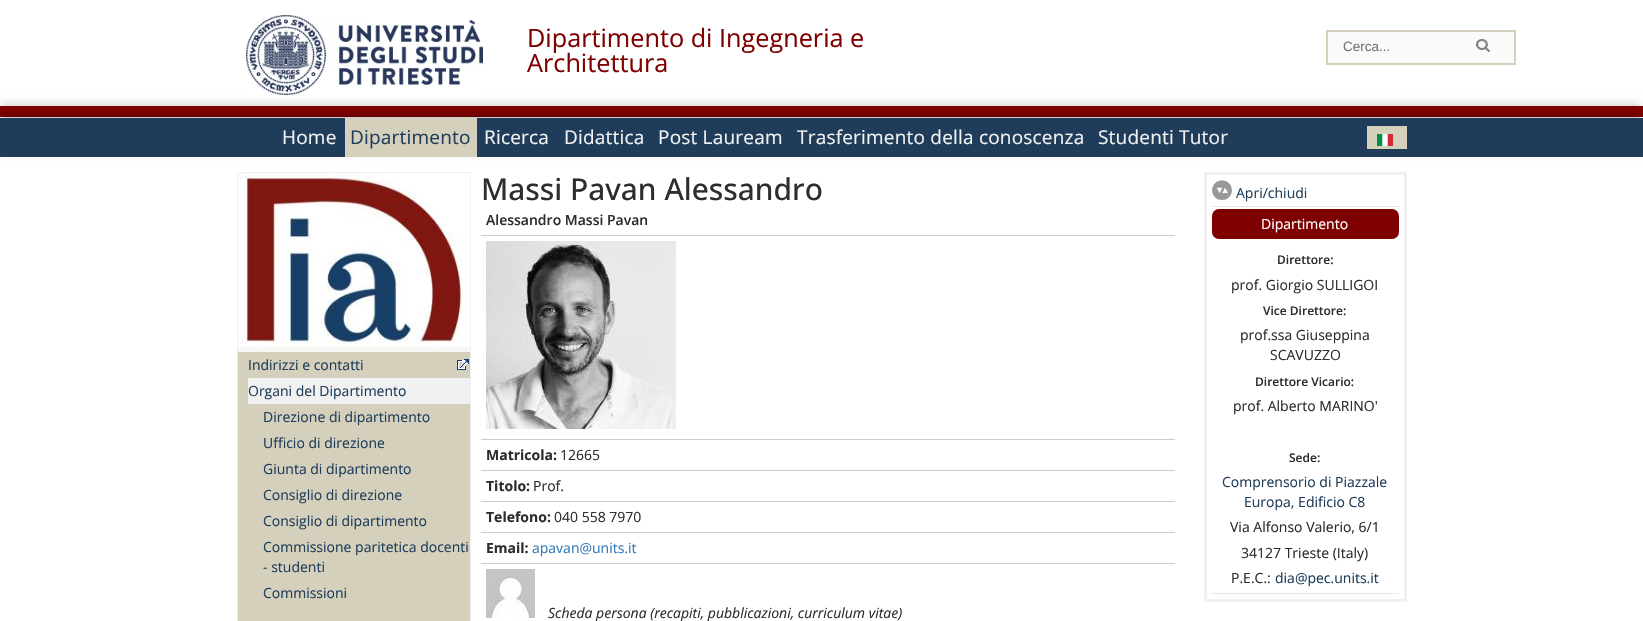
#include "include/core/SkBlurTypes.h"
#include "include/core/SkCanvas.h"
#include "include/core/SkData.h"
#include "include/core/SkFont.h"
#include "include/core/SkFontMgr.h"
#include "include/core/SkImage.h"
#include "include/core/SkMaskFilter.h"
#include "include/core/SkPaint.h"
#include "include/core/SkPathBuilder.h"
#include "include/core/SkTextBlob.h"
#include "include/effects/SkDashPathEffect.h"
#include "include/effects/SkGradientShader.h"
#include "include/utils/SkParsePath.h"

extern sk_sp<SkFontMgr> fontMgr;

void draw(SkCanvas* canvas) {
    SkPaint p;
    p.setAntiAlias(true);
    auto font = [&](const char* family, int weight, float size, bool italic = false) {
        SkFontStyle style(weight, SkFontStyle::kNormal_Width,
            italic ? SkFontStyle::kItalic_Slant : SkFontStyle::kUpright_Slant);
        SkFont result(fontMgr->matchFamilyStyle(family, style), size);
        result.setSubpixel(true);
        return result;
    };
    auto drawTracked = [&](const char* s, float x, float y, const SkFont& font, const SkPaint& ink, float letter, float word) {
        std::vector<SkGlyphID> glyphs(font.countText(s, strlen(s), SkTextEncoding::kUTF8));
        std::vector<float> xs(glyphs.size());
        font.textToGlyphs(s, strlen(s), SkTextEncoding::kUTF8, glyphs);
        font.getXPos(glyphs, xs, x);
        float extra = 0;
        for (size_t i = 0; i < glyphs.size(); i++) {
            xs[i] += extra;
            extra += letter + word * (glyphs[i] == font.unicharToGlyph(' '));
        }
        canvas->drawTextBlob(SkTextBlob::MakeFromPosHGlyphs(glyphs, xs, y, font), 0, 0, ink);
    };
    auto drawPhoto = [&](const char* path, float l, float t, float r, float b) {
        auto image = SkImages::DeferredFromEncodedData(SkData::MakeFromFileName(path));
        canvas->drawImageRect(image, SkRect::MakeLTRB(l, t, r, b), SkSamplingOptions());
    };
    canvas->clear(0xFFFFFFFF);
    p.setColor(0x33000000);
    p.setMaskFilter(SkMaskFilter::MakeBlur(kNormal_SkBlurStyle, 4));
    canvas->drawRect(SkRect::MakeLTRB(2, 104, 1641, 111), p);
    p.setMaskFilter(nullptr);
    drawPhoto("media/1.png", 246, 15, 483, 95);
    auto font1 = font("Open Sans", 400, 25.25f);
    p.setColor(0xFF800000);
    canvas->drawString("Dipartimento di Ingegneria e", 527, 47, font1, p);
    canvas->drawString("Architettura", 527, 72, font1, p);
    canvas->drawRect(SkRect::MakeLTRB(0, 106, 1643, 117), p);
    p.setColor(0x4D000000);
    p.setMaskFilter(SkMaskFilter::MakeBlur(kNormal_SkBlurStyle, 4));
    canvas->drawRect(SkRect::MakeLTRB(2, 116, 1641, 151), p);
    p.setMaskFilter(nullptr);
    p.setColor(0xFF1F3D5A);
    canvas->drawRect(SkRect::MakeLTRB(0, 118, 1643, 157), p);
    p.setColor(0xFFFAFAFA);
    canvas->drawRect(SkRect::MakeLTRB(1327, 31, 1515, 64), p);
    p.setStyle(SkPaint::kStroke_Style);
    p.setStrokeWidth(2);
    p.setColor(0xFFD4D0BC);
    canvas->drawRect(SkRect::MakeLTRB(1327, 31, 1515, 64), p);
    auto font2 = font("Liberation Sans", 400, 13.5f);
    p.setStyle(SkPaint::kFill_Style);
    p.setColor(0xFF757575);
    canvas->drawString("Cerca...", 1343, 51, font2, p);
    drawPhoto("media/2.png", 1476, 39, 1490, 52);
    auto font3 = font("Open Sans", 400, 19);
    p.setColor(0xFFF2F2F2);
    drawTracked("Home", 282, 144, font3, p, 0.2f, 0);
    p.setColor(0xFFD4D0BC);
    canvas->drawRect(SkRect::MakeLTRB(345, 118, 477, 157), p);
    p.setColor(0xFF1F3D5A);
    drawTracked("Dipartimento", 350, 144, font3, p, 0.2f, 0);
    p.setColor(0xFFF2F2F2);
    {
        const struct { const char* s; float x, y; } items[] = {
            {"Ricerca", 484, 144},
            {"Didattica", 564, 144},
            {"Post Lauream", 658, 144},
            {"Trasferimento della conoscenza", 797, 144},
            {"Studenti Tutor", 1098, 144},
        };
        for (auto [s, x, y] : items) {
            drawTracked(s, x, y, font3, p, 0.2f, 0);
        }
    }
    p.setColor(0xFFD4D0BC);
    canvas->drawRect(SkRect::MakeLTRB(1367, 126, 1407, 149), p);
    drawPhoto("media/3.png", 1377, 134, 1393, 146);
    p.setStyle(SkPaint::kStroke_Style);
    p.setStrokeWidth(1);
    p.setColor(0xFFF1F1F1);
    canvas->drawRect(SkRect::MakeLTRB(237.5f, 172.5f, 470.5f, 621.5f), p);
    p.setStyle(SkPaint::kFill_Style);
    p.setColor(0xFFF6F6F2);
    canvas->drawRect(SkRect::MakeLTRB(238, 347, 470, 352), p);
    drawPhoto("media/4.png", 238, 173, 470, 347);
    p.setColor(0xFFD4D0BC);
    canvas->drawRect(SkRect::MakeLTRB(238, 352, 470, 621), p);
    drawPhoto("media/5.png", 457, 359, 469, 370);
    auto font4 = font("Open Sans", 400, 14);
    p.setColor(0xFF1F3D5A);
    canvas->drawString("Indirizzi e contatti", 248, 370, font4, p);
    p.setColor(0xFFF1F1F1);
    canvas->drawRect(SkRect::MakeLTRB(248, 378, 470, 404), p);
    p.setColor(0xFF1F3D5A);
    {
        const struct { const char* s; float x, y; } items[] = {
            {"Organi del Dipartimento", 248, 396},
            {"Direzione di dipartimento", 263, 422},
            {"Ufficio di direzione", 263, 448},
            {"Giunta di dipartimento", 263, 474},
            {"Consiglio di direzione", 263, 500},
            {"Consiglio di dipartimento", 263, 526},
            {"Commissione paritetica docenti", 263, 552},
            {"- studenti", 263, 572},
            {"Commissioni", 263, 598},
        };
        for (auto [s, x, y] : items) {
            canvas->drawString(s, x, y, font4, p);
        }
    }
    auto font5 = font("Open Sans", 500, 30);
    p.setColor(0xFF2E2D29);
    canvas->drawString("Massi Pavan Alessandro", 481, 200, font5, p);
    p.setColor(0xFFCCCCCC);
    canvas->drawRect(SkRect::MakeLTRB(481, 235, 1175, 236), p);
    auto font6 = font("Open Sans", 600, 14);
    p.setColor(0xFF2E2D29);
    canvas->drawString("Alessandro Massi Pavan", 486, 225, font6, p);
    p.setColor(0xFFCCCCCC);
    canvas->drawRect(SkRect::MakeLTRB(481, 439, 1175, 440), p);
    drawPhoto("media/6.png", 486, 241, 676, 429);
    canvas->drawRect(SkRect::MakeLTRB(481, 470, 1175, 471), p);
    auto font7 = font("Open Sans", 700, 14);
    p.setColor(0xFF2E2D29);
    canvas->drawString("Matricola:", 486, 460, font7, p);
    canvas->drawString("12665", 560, 460, font4, p);
    p.setColor(0xFFCCCCCC);
    canvas->drawRect(SkRect::MakeLTRB(481, 501, 1175, 502), p);
    p.setColor(0xFF2E2D29);
    canvas->drawString("Titolo:", 486, 491, font7, p);
    canvas->drawString("Prof.", 533, 491, font4, p);
    p.setColor(0xFFCCCCCC);
    canvas->drawRect(SkRect::MakeLTRB(481, 532, 1175, 533), p);
    p.setColor(0xFF2E2D29);
    canvas->drawString("Telefono:", 486, 522, font7, p);
    canvas->drawString("040 558 7970", 554, 522, font4, p);
    p.setColor(0xFFCCCCCC);
    canvas->drawRect(SkRect::MakeLTRB(481, 563, 1175, 564), p);
    p.setColor(0xFF2E2D29);
    canvas->drawString("Email:", 486, 553, font7, p);
    p.setColor(0xFF337AB7);
    canvas->drawString("apavan@units.it", 532, 553, font4, p);
    drawPhoto("media/7.png", 486, 569, 535, 618);
    auto font8 = font("Open Sans", 400, 14, true);
    p.setColor(0xFF2E2D29);
    canvas->drawString("Scheda persona (recapiti, pubblicazioni, curriculum vitae)", 548, 618, font8, p);
    p.setStyle(SkPaint::kStroke_Style);
    p.setStrokeWidth(3);
    p.setColor(0xFFF1F1F1);
    canvas->drawRect(SkRect::MakeLTRB(1205.5f, 173.5f, 1405.5f, 600.5f), p);
    drawPhoto("media/8.png", 1212, 180, 1232, 200);
    p.setStyle(SkPaint::kFill_Style);
    p.setColor(0xFF1F3D5A);
    canvas->drawString("Apri/chiudi", 1236, 198, font4, p);
    p.setColor(0xFFE6E6E6);
    canvas->drawRect(SkRect::MakeLTRB(1212, 206, 1399, 207), p);
    canvas->drawRect(SkRect::MakeLTRB(1212, 593, 1399, 594), p);
    p.setColor(0xFF7E0000);
    canvas->drawRoundRect(SkRect::MakeLTRB(1212, 209, 1399, 239), 7, 7, p);
    p.setColor(0xFFFFFFFF);
    canvas->drawString("Dipartimento", 1261, 229, font4, p);
    auto font9 = font("Open Sans", 600, 12);
    p.setColor(0xFF2E2D29);
    canvas->drawString("Direttore:", 1277, 264, font9, p);
    canvas->drawString("prof. Giorgio SULLIGOI", 1231, 290, font4, p);
    canvas->drawString("Vice Direttore:", 1263, 315, font9, p);
    canvas->drawString("prof.ssa Giuseppina", 1240, 340, font4, p);
    canvas->drawString("SCAVUZZO", 1270, 360, font4, p);
    canvas->drawString("Direttore Vicario:", 1255, 386, font9, p);
    canvas->drawString("prof. Alberto MARINO'", 1233, 411, font4, p);
    canvas->drawString("Sede:", 1289, 462, font9, p);
    p.setColor(0xFF1F3D5A);
    canvas->drawString("Comprensorio di Piazzale", 1222, 487, font4, p);
    canvas->drawString("Europa, Edificio C8", 1244, 507, font4, p);
    p.setColor(0xFF2E2D29);
    {
        const struct { const char* s; float x, y; } items[] = {
            {"Via Alfonso Valerio, 6/1", 1230, 532},
            {"34127 Trieste (Italy)", 1241, 558},
            {"P.E.C.:", 1231, 583},
        };
        for (auto [s, x, y] : items) {
            canvas->drawString(s, x, y, font4, p);
        }
    }
    p.setColor(0xFF1F3D5A);
    canvas->drawString("dia@pec.units.it", 1275, 583, font4, p);
}
